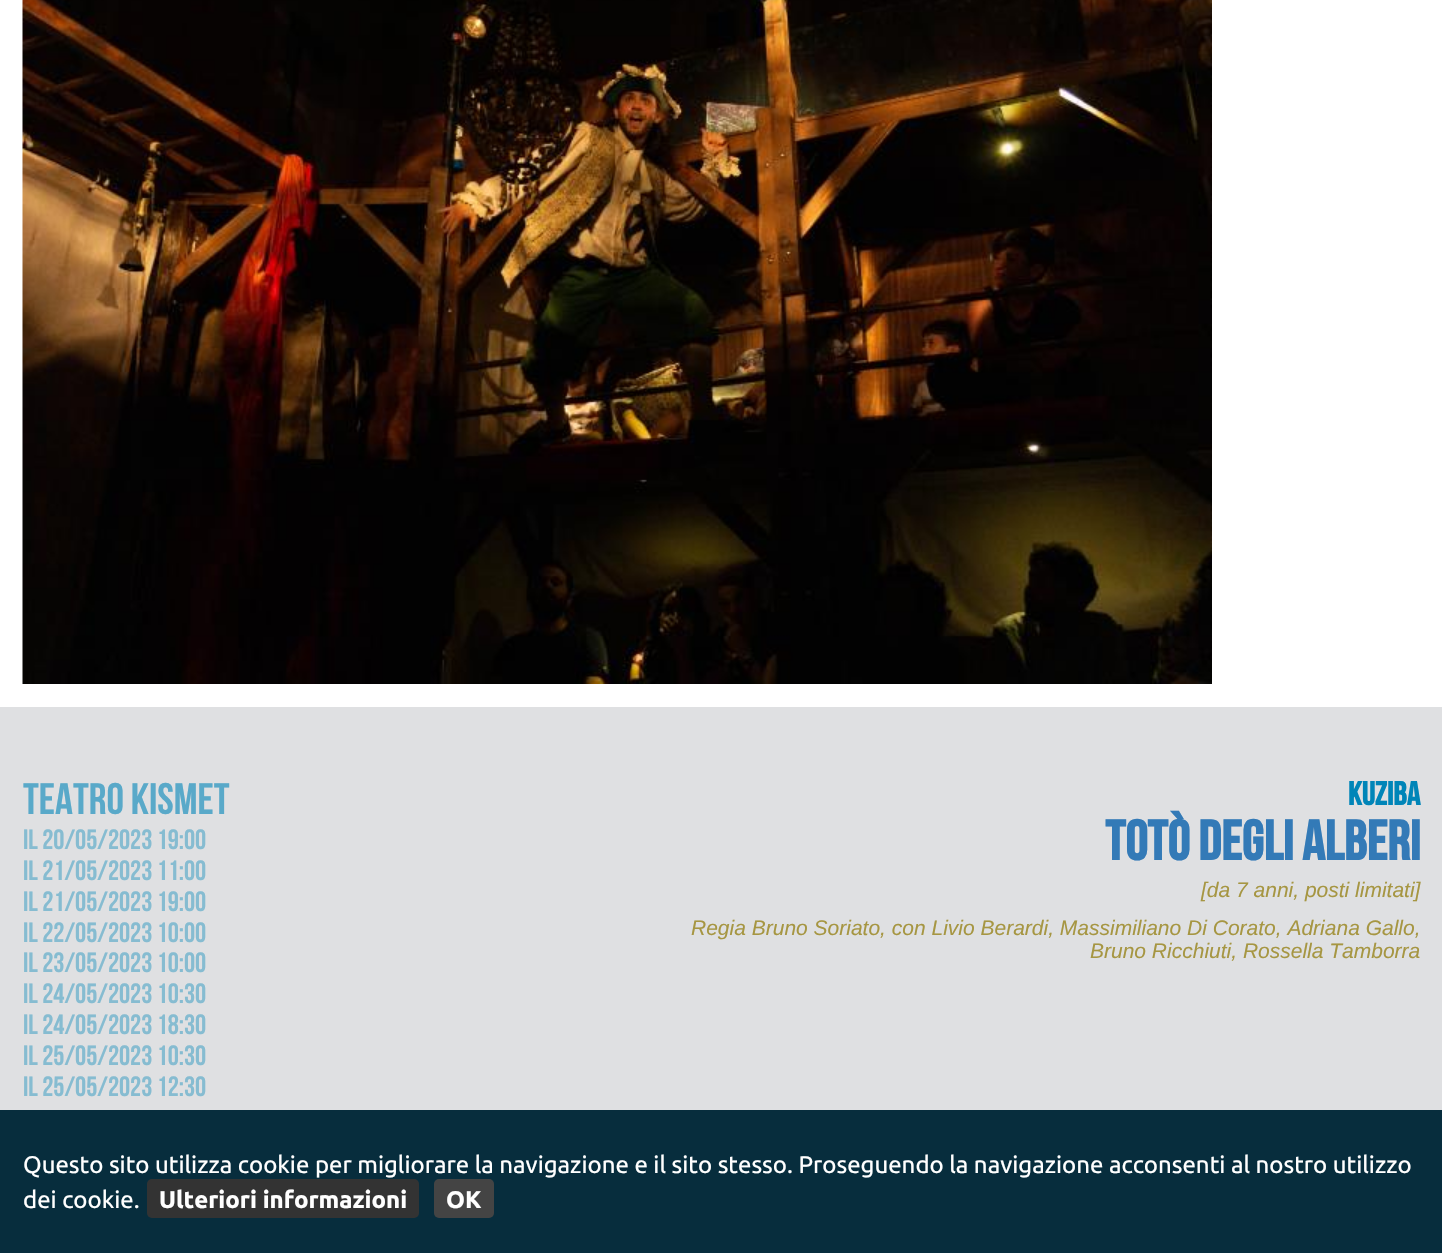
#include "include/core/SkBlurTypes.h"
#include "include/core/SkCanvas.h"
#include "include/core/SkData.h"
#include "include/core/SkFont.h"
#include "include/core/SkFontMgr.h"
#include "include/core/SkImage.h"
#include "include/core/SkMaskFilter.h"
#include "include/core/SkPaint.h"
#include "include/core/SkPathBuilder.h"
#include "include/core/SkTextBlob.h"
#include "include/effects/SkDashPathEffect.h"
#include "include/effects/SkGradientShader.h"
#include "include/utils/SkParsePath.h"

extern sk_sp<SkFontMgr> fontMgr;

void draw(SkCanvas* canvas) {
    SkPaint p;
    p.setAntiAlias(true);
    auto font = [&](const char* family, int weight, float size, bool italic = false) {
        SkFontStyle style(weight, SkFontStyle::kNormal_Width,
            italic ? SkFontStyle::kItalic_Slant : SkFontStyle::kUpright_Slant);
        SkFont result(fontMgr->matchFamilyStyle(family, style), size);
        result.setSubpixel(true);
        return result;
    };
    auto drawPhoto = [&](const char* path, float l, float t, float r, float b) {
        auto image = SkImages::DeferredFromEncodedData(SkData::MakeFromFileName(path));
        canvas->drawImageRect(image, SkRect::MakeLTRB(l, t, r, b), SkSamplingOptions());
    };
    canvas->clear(0xFFFFFFFF);
    drawPhoto("media/1.png", 22, 0, 1212, 684);
    p.setColor(0xFFDFE0E2);
    canvas->drawRect(SkRect::MakeLTRB(0, 707, 1442, 1110), p);
    auto font1 = font("Bebas Neue", 400, 44);
    p.setColor(0xFF59A9C9);
    canvas->drawString("Teatro Kismet", 23, 814, font1, p);
    auto font2 = font("Bebas Neue", 400, 28);
    p.setColor(0xFF86BCD1);
    {
        const struct { const char* s; float x, y; } items[] = {
            {"il 20/05/2023 19:00", 23, 849},
            {"il 21/05/2023 11:00", 23, 880},
            {"il 21/05/2023 19:00", 23, 911},
            {"il 22/05/2023 10:00", 23, 942},
            {"il 23/05/2023 10:00", 23, 972},
            {"il 24/05/2023 10:30", 23, 1003},
            {"il 24/05/2023 18:30", 23, 1034},
            {"il 25/05/2023 10:30", 23, 1065},
            {"il 25/05/2023 12:30", 23, 1096},
        };
        for (auto [s, x, y] : items) {
            canvas->drawString(s, x, y, font2, p);
        }
    }
    auto font3 = font("Bebas Neue", 700, 33);
    p.setColor(0xFF0085B8);
    canvas->drawString("Kuziba", 1348, 805, font3, p);
    auto font4 = font("Bebas Neue", 700, 56);
    p.setColor(0xFF337AB7);
    canvas->drawString("TOTÒ DEGLI ALBERI", 1105, 860, font4, p);
    auto font5 = font("Liberation Sans", 400, 21, true);
    p.setColor(0xFFA69642);
    {
        const struct { const char* s; float x, y; } items[] = {
            {"[da 7 anni, posti limitati]", 1201, 897},
            {"Regia Bruno Soriato, con Livio Berardi, Massimiliano Di Corato, Adriana Gallo,", 691, 935},
            {"Bruno Ricchiuti, Rossella Tamborra", 1090, 958},
        };
        for (auto [s, x, y] : items) {
            canvas->drawString(s, x, y, font5, p);
        }
    }
    p.setColor(0xFF072D3D);
    canvas->drawRect(SkRect::MakeLTRB(0, 1110, 1442, 1253), p);
    auto font6 = font("Ubuntu", 400, 24);
    p.setColor(0xFFFFFFFF);
    canvas->drawString("Questo sito utilizza cookie per migliorare la navigazione e il sito stesso. Proseguendo la navigazione acconsenti al nostro utilizzo", 23, 1173, font6, p);
    canvas->drawString("dei cookie.", 23, 1208, font6, p);
    p.setColor(0xFF333333);
    canvas->drawRoundRect(SkRect::MakeLTRB(147, 1179, 419, 1218), 5, 5, p);
    auto font7 = font("Ubuntu", 700, 24);
    p.setColor(0xFFFFFFFF);
    canvas->drawString("Ulteriori informazioni", 159, 1208, font7, p);
    p.setColor(0xFF444444);
    canvas->drawRoundRect(SkRect::MakeLTRB(434, 1179, 494, 1218), 5, 5, p);
    p.setColor(0xFFFFFFFF);
    canvas->drawString("OK", 446, 1208, font7, p);
}
